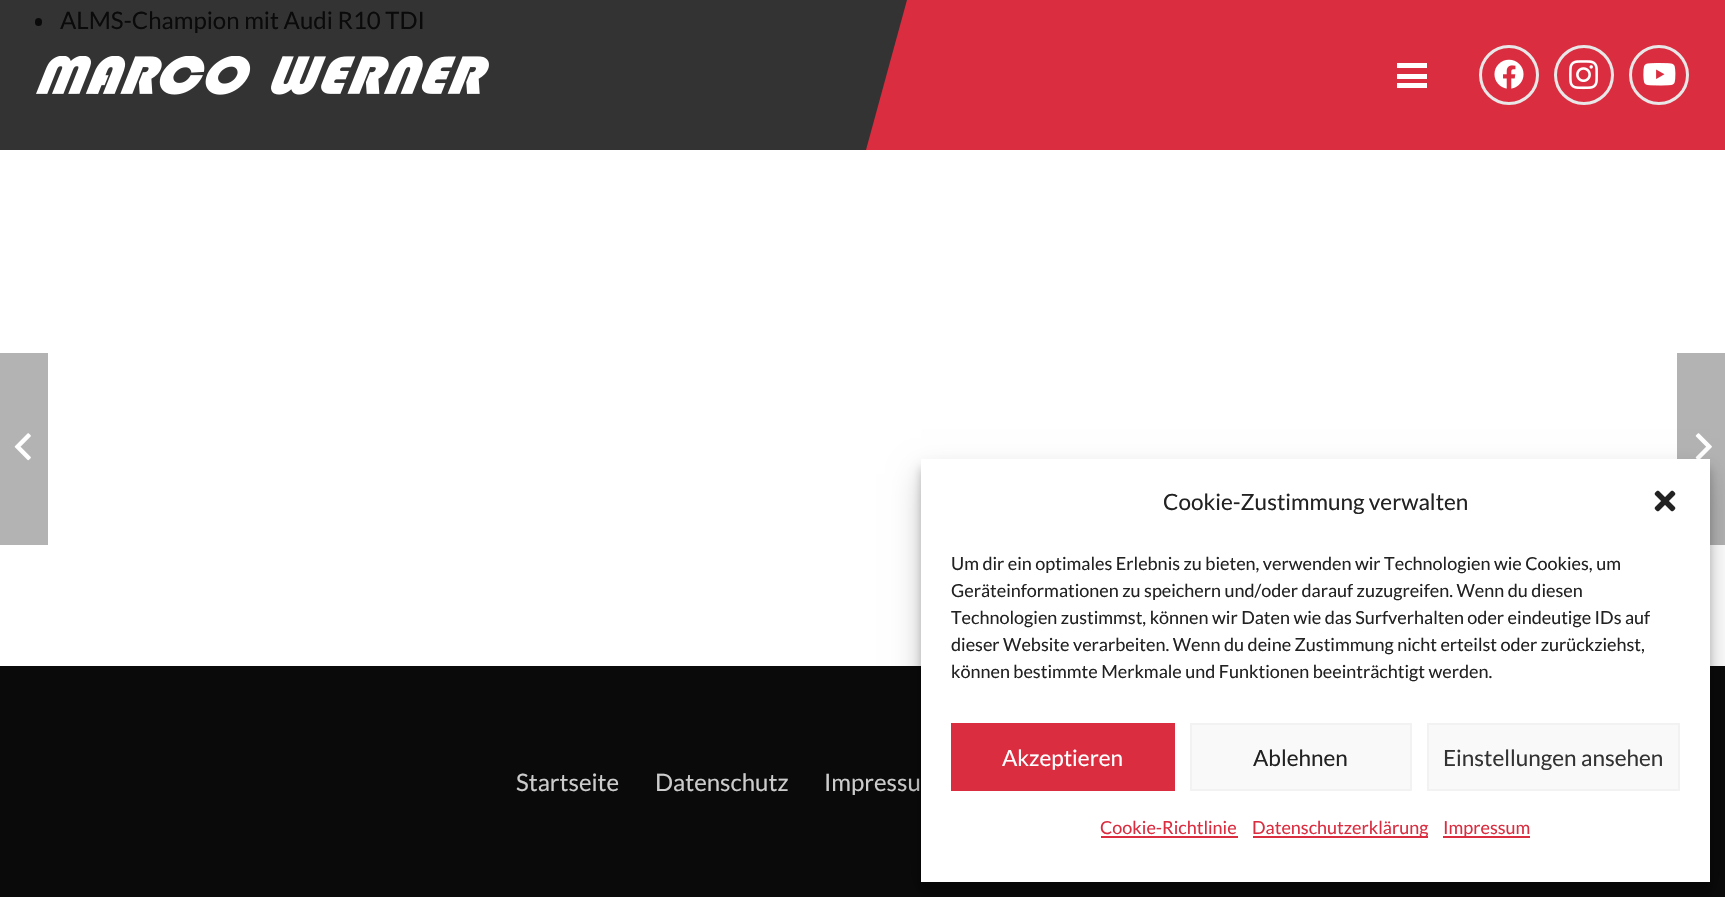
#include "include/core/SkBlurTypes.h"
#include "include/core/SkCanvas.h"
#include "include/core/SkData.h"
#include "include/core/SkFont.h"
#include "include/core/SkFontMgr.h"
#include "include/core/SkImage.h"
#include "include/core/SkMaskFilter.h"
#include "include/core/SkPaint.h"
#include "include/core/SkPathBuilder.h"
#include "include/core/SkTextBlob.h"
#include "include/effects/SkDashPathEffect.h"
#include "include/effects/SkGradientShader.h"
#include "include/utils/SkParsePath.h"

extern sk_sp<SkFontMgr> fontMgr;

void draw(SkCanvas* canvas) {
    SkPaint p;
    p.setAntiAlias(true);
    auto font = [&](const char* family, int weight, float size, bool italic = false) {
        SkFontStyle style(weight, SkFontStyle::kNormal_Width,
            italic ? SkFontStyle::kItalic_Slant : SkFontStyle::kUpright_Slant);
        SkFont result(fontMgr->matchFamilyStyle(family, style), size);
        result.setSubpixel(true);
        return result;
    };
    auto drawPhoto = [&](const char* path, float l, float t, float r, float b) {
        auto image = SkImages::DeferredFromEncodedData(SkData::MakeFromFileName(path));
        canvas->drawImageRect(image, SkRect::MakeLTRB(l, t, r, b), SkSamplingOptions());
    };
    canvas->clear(0xFFFFFFFF);
    p.setColor(0xFF333333);
    canvas->drawRect(SkRect::MakeLTRB(0, 0, 907, 150), p);
    drawPhoto("media/1.png", 36, 56, 489, 95);
    p.setColor(0xFFDA2D40);
    canvas->drawRect(SkRect::MakeLTRB(919, 0, 1725, 150), p);
    canvas->drawPath(SkPathBuilder().moveTo(907, 0).lineTo(959, 0).lineTo(919, 150).lineTo(866, 150).close().detach(), p);
    {
        const struct { float l, t, r, b; SkColor color; } items[] = {
            {1397, 74, 1427, 79, 0xFFFFFFFF},
            {1397, 63, 1427, 68, 0xFFFFFFFF},
            {1397, 83, 1427, 88, 0xFFFFFFFF},
        };
        for (auto [l, t, r, b, color] : items) {
            p.setColor(color);
            canvas->drawRect(SkRect::MakeLTRB(l, t, r, b), p);
        }
    }
    p.setStyle(SkPaint::kStroke_Style);
    p.setStrokeWidth(3);
    p.setColor(0xFFE8E8E8);
    canvas->drawCircle(1509, 75, 28.5f, p);
    drawPhoto("media/2.png", 1494, 59, 1524, 89);
    canvas->drawCircle(1584, 75, 28.5f, p);
    drawPhoto("media/3.png", 1569, 60, 1598, 90);
    canvas->drawCircle(1659, 75, 28.5f, p);
    drawPhoto("media/4.png", 1643, 63, 1676, 86);
    p.setStyle(SkPaint::kFill_Style);
    p.setColor(0xFF0A0A0A);
    canvas->drawRoundRect(SkRect::MakeLTRB(35, 18, 42, 26), 3.5f, 3.5f, p);
    auto font1 = font("Lato", 400, 24);
    canvas->drawString("ALMS-Champion mit Audi R10 TDI", 60, 29, font1, p);
    p.setColor(0xFFB3B3B3);
    canvas->drawRect(SkRect::MakeLTRB(0, 353, 48, 545), p);
    drawPhoto("media/5.png", 14, 433, 31, 461);
    canvas->drawRect(SkRect::MakeLTRB(1677, 353, 1725, 545), p);
    drawPhoto("media/6.png", 1695, 433, 1712, 459);
    p.setColor(0xFF0A0A0A);
    canvas->drawRect(SkRect::MakeLTRB(0, 666, 1725, 897), p);
    p.setColor(0xFFCCCCCC);
    {
        const struct { const char* s; float x, y; } items[] = {
            {"Startseite", 516, 791},
            {"Datenschutz", 655, 791},
            {"Impressu", 824, 791},
        };
        for (auto [s, x, y] : items) {
            canvas->drawString(s, x, y, font1, p);
        }
    }
    p.setColor(0x3B000000);
    p.setMaskFilter(SkMaskFilter::MakeBlur(kNormal_SkBlurStyle, 4.5f));
    canvas->drawRect(SkRect::MakeLTRB(921, 468, 1710, 891), p);
    p.setMaskFilter(nullptr);
    p.setColor(0x30000000);
    p.setMaskFilter(SkMaskFilter::MakeBlur(kNormal_SkBlurStyle, 15));
    canvas->drawRect(SkRect::MakeLTRB(921, 474, 1710, 897), p);
    p.setMaskFilter(nullptr);
    p.setColor(0xFFFFFFFF);
    canvas->drawRect(SkRect::MakeLTRB(921, 459, 1710, 882), p);
    auto font2 = font("Lato", 400, 22.5f);
    p.setColor(0xFF222222);
    canvas->drawString("Cookie-Zustimmung verwalten", 1163, 510, font2, p);
    drawPhoto("media/7.png", 1654, 490, 1676, 512);
    auto font3 = font("Lato", 400, 18);
    {
        const struct { const char* s; float x, y; } items[] = {
            {"Um dir ein optimales Erlebnis zu bieten, verwenden wir Technologien wie Cookies, um", 951, 570},
            {"Geräteinformationen zu speichern und/oder darauf zuzugreifen. Wenn du diesen", 951, 597},
            {"Technologien zustimmst, können wir Daten wie das Surfverhalten oder eindeutige IDs auf", 951, 624},
            {"dieser Website verarbeiten. Wenn du deine Zustimmung nicht erteilst oder zurückziehst,", 951, 651},
            {"können bestimmte Merkmale und Funktionen beeinträchtigt werden.", 951, 678},
        };
        for (auto [s, x, y] : items) {
            canvas->drawString(s, x, y, font3, p);
        }
    }
    p.setColor(0xFFDA2D40);
    canvas->drawRect(SkRect::MakeLTRB(951, 723, 1175, 791), p);
    p.setColor(0xFFFFFFFF);
    canvas->drawString("Akzeptieren", 1002, 766, font2, p);
    p.setColor(0xFFF9F9F9);
    canvas->drawRect(SkRect::MakeLTRB(1191, 724, 1411, 790), p);
    p.setStyle(SkPaint::kStroke_Style);
    p.setStrokeWidth(2);
    p.setColor(0xFFF2F2F2);
    canvas->drawRect(SkRect::MakeLTRB(1191, 724, 1411, 790), p);
    p.setStyle(SkPaint::kFill_Style);
    p.setColor(0xFF222222);
    canvas->drawString("Ablehnen", 1253, 766, font2, p);
    p.setColor(0xFFF9F9F9);
    canvas->drawRect(SkRect::MakeLTRB(1428, 724, 1679, 790), p);
    p.setStyle(SkPaint::kStroke_Style);
    p.setColor(0xFFF2F2F2);
    canvas->drawRect(SkRect::MakeLTRB(1428, 724, 1679, 790), p);
    p.setStyle(SkPaint::kFill_Style);
    p.setColor(0xFF333333);
    canvas->drawString("Einstellungen ansehen", 1443, 766, font2, p);
    p.setColor(0xFFDA2D40);
    canvas->drawString("Cookie-Richtlinie", 1100, 834, font3, p);
    canvas->drawRect(SkRect::MakeLTRB(1101, 836, 1238, 838), p);
    canvas->drawRect(SkRect::MakeLTRB(1253, 836, 1428, 838), p);
    canvas->drawString("Datenschutzerklärung", 1252, 834, font3, p);
    canvas->drawRect(SkRect::MakeLTRB(1443, 836, 1530, 838), p);
    canvas->drawString("Impressum", 1443, 834, font3, p);
}
